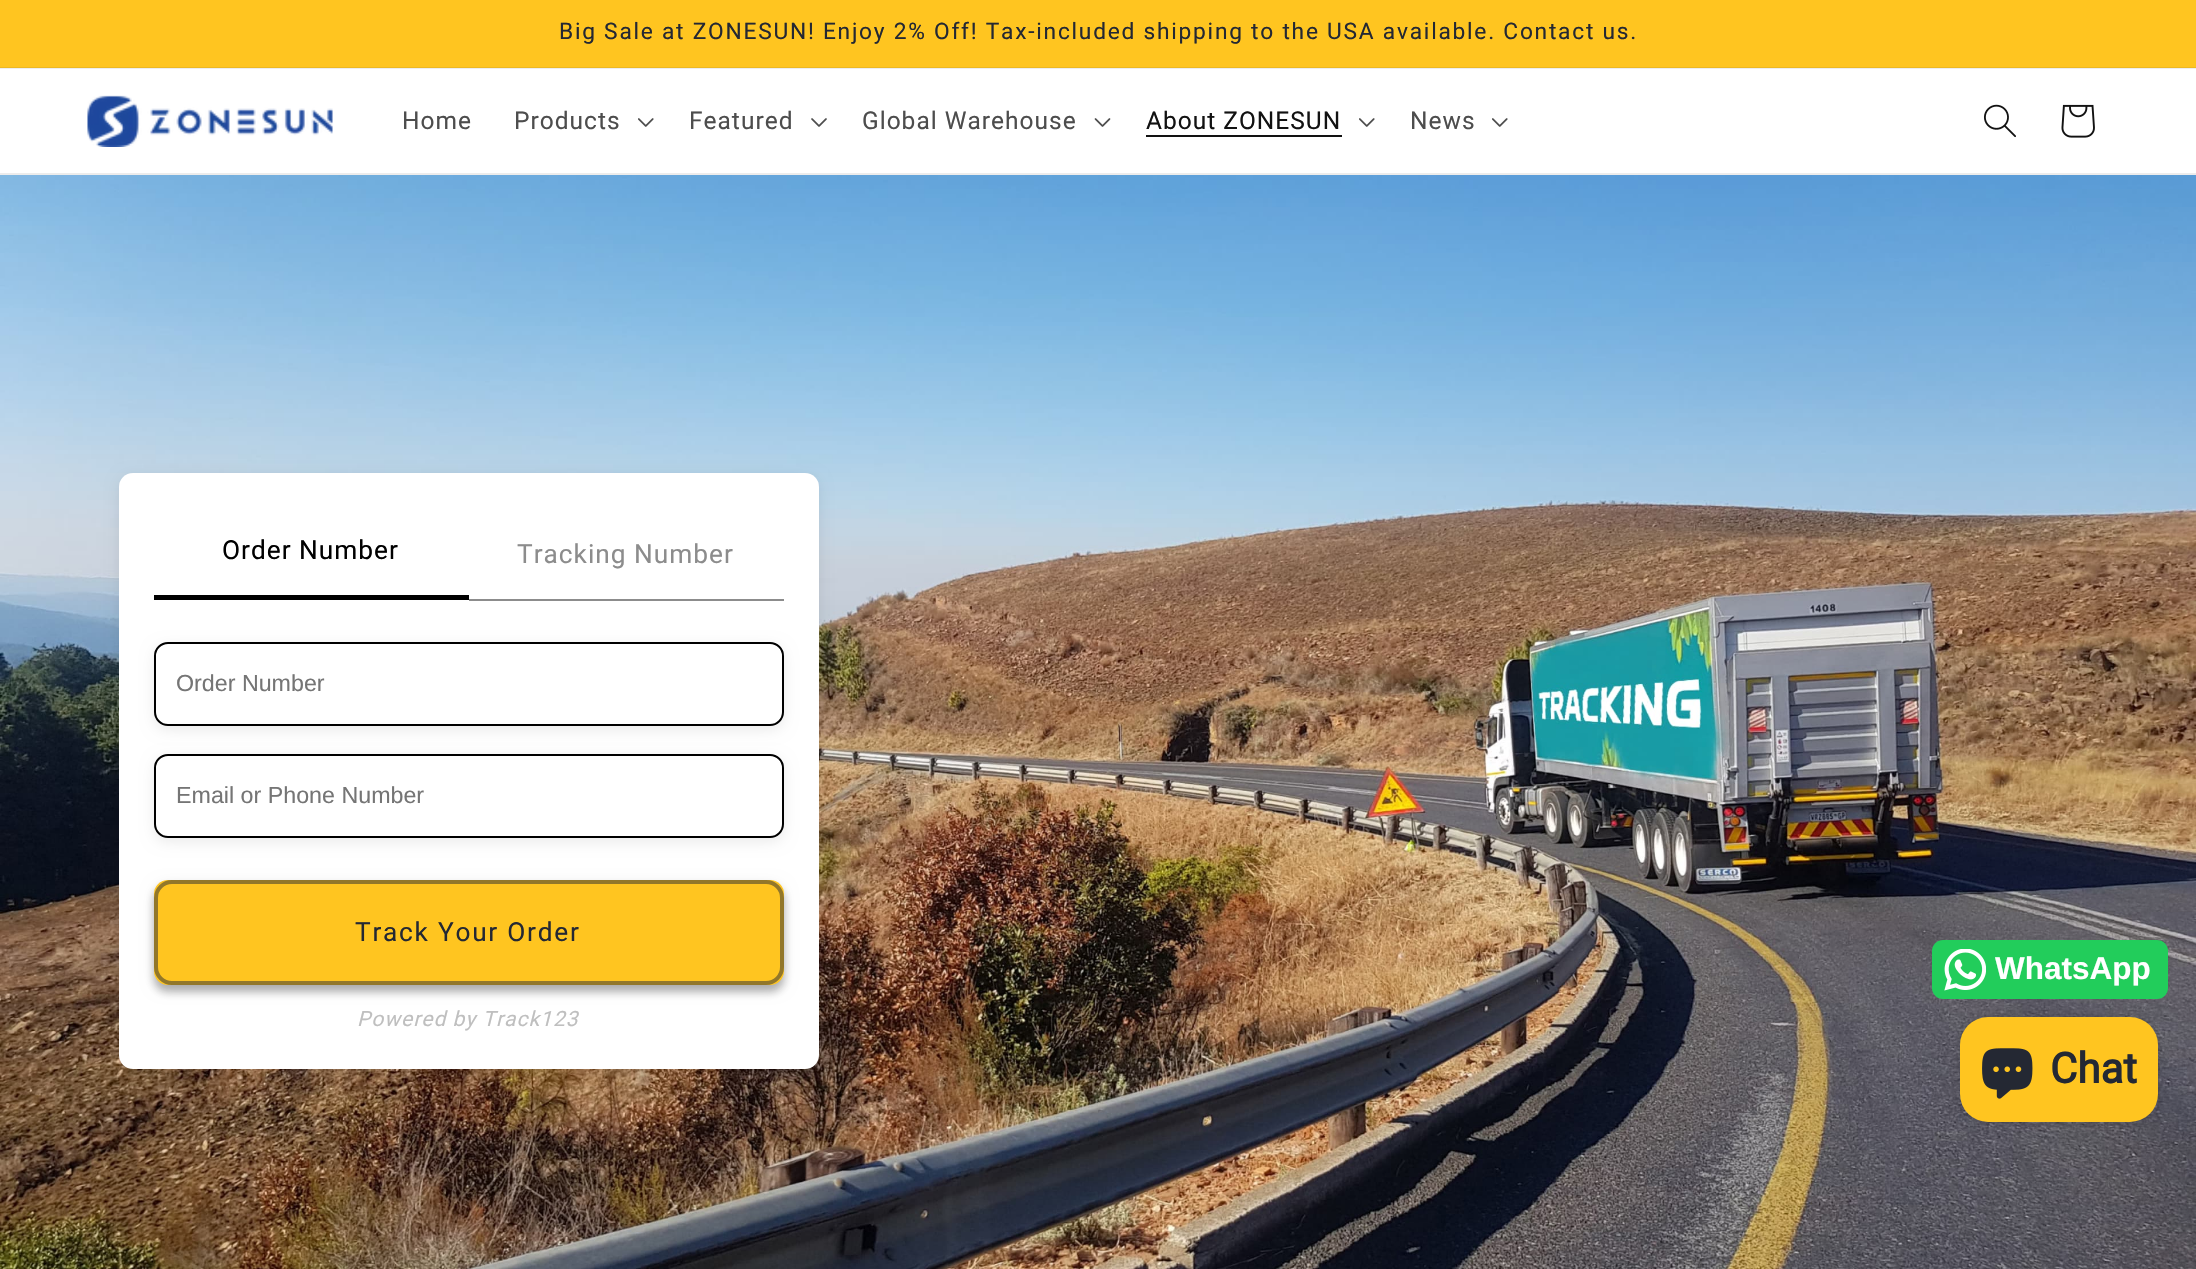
#include "include/core/SkBlurTypes.h"
#include "include/core/SkCanvas.h"
#include "include/core/SkData.h"
#include "include/core/SkFont.h"
#include "include/core/SkFontMgr.h"
#include "include/core/SkImage.h"
#include "include/core/SkMaskFilter.h"
#include "include/core/SkPaint.h"
#include "include/core/SkPathBuilder.h"
#include "include/core/SkTextBlob.h"
#include "include/effects/SkDashPathEffect.h"
#include "include/effects/SkGradientShader.h"
#include "include/utils/SkParsePath.h"

extern sk_sp<SkFontMgr> fontMgr;

void draw(SkCanvas* canvas) {
    SkPaint p;
    p.setAntiAlias(true);
    auto font = [&](const char* family, int weight, float size, bool italic = false) {
        SkFontStyle style(weight, SkFontStyle::kNormal_Width,
            italic ? SkFontStyle::kItalic_Slant : SkFontStyle::kUpright_Slant);
        SkFont result(fontMgr->matchFamilyStyle(family, style), size);
        result.setSubpixel(true);
        return result;
    };
    auto drawTracked = [&](const char* s, float x, float y, const SkFont& font, const SkPaint& ink, float letter, float word) {
        std::vector<SkGlyphID> glyphs(font.countText(s, strlen(s), SkTextEncoding::kUTF8));
        std::vector<float> xs(glyphs.size());
        font.textToGlyphs(s, strlen(s), SkTextEncoding::kUTF8, glyphs);
        font.getXPos(glyphs, xs, x);
        float extra = 0;
        for (size_t i = 0; i < glyphs.size(); i++) {
            xs[i] += extra;
            extra += letter + word * (glyphs[i] == font.unicharToGlyph(' '));
        }
        canvas->drawTextBlob(SkTextBlob::MakeFromPosHGlyphs(glyphs, xs, y, font), 0, 0, ink);
    };
    auto drawPhoto = [&](const char* path, float l, float t, float r, float b) {
        auto image = SkImages::DeferredFromEncodedData(SkData::MakeFromFileName(path));
        canvas->drawImageRect(image, SkRect::MakeLTRB(l, t, r, b), SkSamplingOptions());
    };
    canvas->clear(0xFFFFFFFF);
    {
        const struct { float l, t, r, b; SkColor color; } items[] = {
            {0, 68, 2196, 69, 0xFFEDEEEF},
            {0, 0, 2196, 67, 0xFFFFC520},
            {0, 67, 2196, 68, 0xFFEDB822},
        };
        for (auto [l, t, r, b, color] : items) {
            p.setColor(color);
            canvas->drawRect(SkRect::MakeLTRB(l, t, r, b), p);
        }
    }
    auto font1 = font("Roboto", 400, 22.75f);
    p.setColor(0xFF242833);
    drawTracked("Big Sale at ZONESUN! Enjoy 2% Off! Tax-included shipping to the USA available. Contact us.", 559, 39, font1, p, 1.75f, 0);
    p.setColor(0xFFECECEC);
    canvas->drawRect(SkRect::MakeLTRB(0, 173, 2196, 175), p);
    drawPhoto("media/1.png", 87, 95, 333, 147);
    auto font2 = font("Roboto", 400, 24.5f);
    p.setColor(0xFF4D4D4D);
    drawTracked("Home", 402, 129, font2, p, 1, 0);
    drawTracked("Products", 514, 129, font2, p, 1, 0);
    drawPhoto("media/2.png", 638, 118, 654, 127);
    drawTracked("Featured", 689, 129, font2, p, 1, 0);
    drawPhoto("media/3.png", 811, 118, 827, 127);
    drawTracked("Global Warehouse", 862, 129, font2, p, 1, 0);
    drawPhoto("media/4.png", 1094, 118, 1111, 127);
    p.setColor(0xFF121212);
    drawTracked("About ZONESUN", 1146, 129, font2, p, 1, 0);
    canvas->drawRect(SkRect::MakeLTRB(1146, 135, 1342, 137), p);
    drawPhoto("media/2.png", 1359, 118, 1375, 127);
    p.setColor(0xFF4D4D4D);
    drawTracked("News", 1410, 129, font2, p, 1, 0);
    drawPhoto("media/2.png", 1492, 118, 1508, 127);
    drawPhoto("media/5.png", 1984, 104, 2016, 138);
    drawPhoto("media/6.png", 2061, 104, 2095, 138);
    drawPhoto("media/7.png", 0, 175, 2196, 1269);
    p.setColor(0x14000000);
    p.setMaskFilter(SkMaskFilter::MakeBlur(kNormal_SkBlurStyle, 7));
    canvas->drawRoundRect(SkRect::MakeLTRB(119, 476, 819, 1073), 14, 14, p);
    p.setMaskFilter(nullptr);
    p.setColor(0xFFFFFFFF);
    canvas->drawRoundRect(SkRect::MakeLTRB(119, 473, 819, 1069), 14, 14, p);
    p.setColor(0xFF000000);
    canvas->drawRect(SkRect::MakeLTRB(154, 595, 469, 600), p);
    auto font3 = font("Roboto", 400, 26.25f);
    drawTracked("Order Number", 222, 559, font3, p, 1, 0);
    p.setColor(0xFF8C8C8C);
    canvas->drawRect(SkRect::MakeLTRB(469, 599, 784, 601), p);
    drawTracked("Tracking Number", 517, 563, font3, p, 1, 0);
    p.setColor(0x14000000);
    p.setMaskFilter(SkMaskFilter::MakeBlur(kNormal_SkBlurStyle, 7));
    canvas->drawRoundRect(SkRect::MakeLTRB(154, 646, 784, 730), 14, 14, p);
    p.setMaskFilter(nullptr);
    p.setColor(0xFFFFFFFF);
    canvas->drawRoundRect(SkRect::MakeLTRB(155, 643, 783, 725), 13, 13, p);
    p.setStyle(SkPaint::kStroke_Style);
    p.setStrokeWidth(2);
    p.setColor(0xFF000000);
    canvas->drawRoundRect(SkRect::MakeLTRB(155, 643, 783, 725), 13, 13, p);
    auto font4 = font("Liberation Sans", 400, 23.25f);
    p.setStyle(SkPaint::kFill_Style);
    p.setColor(0xFF757575);
    canvas->drawString("Order Number", 176, 691, font4, p);
    p.setColor(0x14000000);
    p.setMaskFilter(SkMaskFilter::MakeBlur(kNormal_SkBlurStyle, 7));
    canvas->drawRoundRect(SkRect::MakeLTRB(154, 758, 784, 842), 14, 14, p);
    p.setMaskFilter(nullptr);
    p.setColor(0xFFFFFFFF);
    canvas->drawRoundRect(SkRect::MakeLTRB(155, 755, 783, 837), 13, 13, p);
    p.setStyle(SkPaint::kStroke_Style);
    p.setColor(0xFF000000);
    canvas->drawRoundRect(SkRect::MakeLTRB(155, 755, 783, 837), 13, 13, p);
    p.setStyle(SkPaint::kFill_Style);
    p.setColor(0xFF757575);
    canvas->drawString("Email or Phone Number", 176, 803, font4, p);
    p.setColor(0x14000000);
    p.setMaskFilter(SkMaskFilter::MakeBlur(kNormal_SkBlurStyle, 7));
    canvas->drawRoundRect(SkRect::MakeLTRB(154, 884, 784, 989), 14, 14, p);
    p.setMaskFilter(nullptr);
    p.setColor(0x4D121212);
    p.setMaskFilter(SkMaskFilter::MakeBlur(kNormal_SkBlurStyle, 4.5f));
    canvas->drawRoundRect(SkRect::MakeLTRB(154, 887, 784, 992), 14, 14, p);
    p.setMaskFilter(nullptr);
    p.setColor(0xFFFFC520);
    canvas->drawRoundRect(SkRect::MakeLTRB(154, 880, 784, 985), 14, 14, p);
    p.setStyle(SkPaint::kStroke_Style);
    p.setStrokeWidth(4);
    canvas->drawRoundRect(SkRect::MakeLTRB(156, 882, 782, 983), 16, 16, p);
    p.setColor(0xFF92772A);
    canvas->drawRoundRect(SkRect::MakeLTRB(156, 882, 782, 983), 16, 16, p);
    p.setStyle(SkPaint::kFill_Style);
    p.setColor(0xFF242833);
    drawTracked("Track Your Order", 355, 941, font3, p, 1.75f, 0);
    auto font5 = font("Roboto", 400, 21, true);
    p.setColor(0xFFBFBFBF);
    drawTracked("Powered by Track123", 357, 1026, font5, p, 1, 0);
    p.setColor(0xFF22CD5B);
    canvas->drawRoundRect(SkRect::MakeLTRB(1932, 940, 2168, 999), 11, 11, p);
    drawPhoto("media/8.png", 1944, 949, 1986, 991);
    auto font6 = font("Liberation Sans", 700, 31.5f);
    p.setColor(0xFFFFFFFF);
    canvas->drawString("WhatsApp", 1995, 979, font6, p);
    p.setColor(0x26000000);
    p.setMaskFilter(SkMaskFilter::MakeBlur(kNormal_SkBlurStyle, 4.5f));
    canvas->drawRoundRect(SkRect::MakeLTRB(1960, 1017, 2158, 1122), 28, 28, p);
    p.setMaskFilter(nullptr);
    p.setColor(0xFFFFC520);
    canvas->drawRoundRect(SkRect::MakeLTRB(1960, 1017, 2158, 1122), 28, 28, p);
    drawPhoto("media/9.png", 1982, 1048, 2033, 1099);
    auto font7 = font("Roboto", 700, 42);
    p.setColor(0xFF242833);
    canvas->drawString("Chat", 2050, 1083, font7, p);
}
